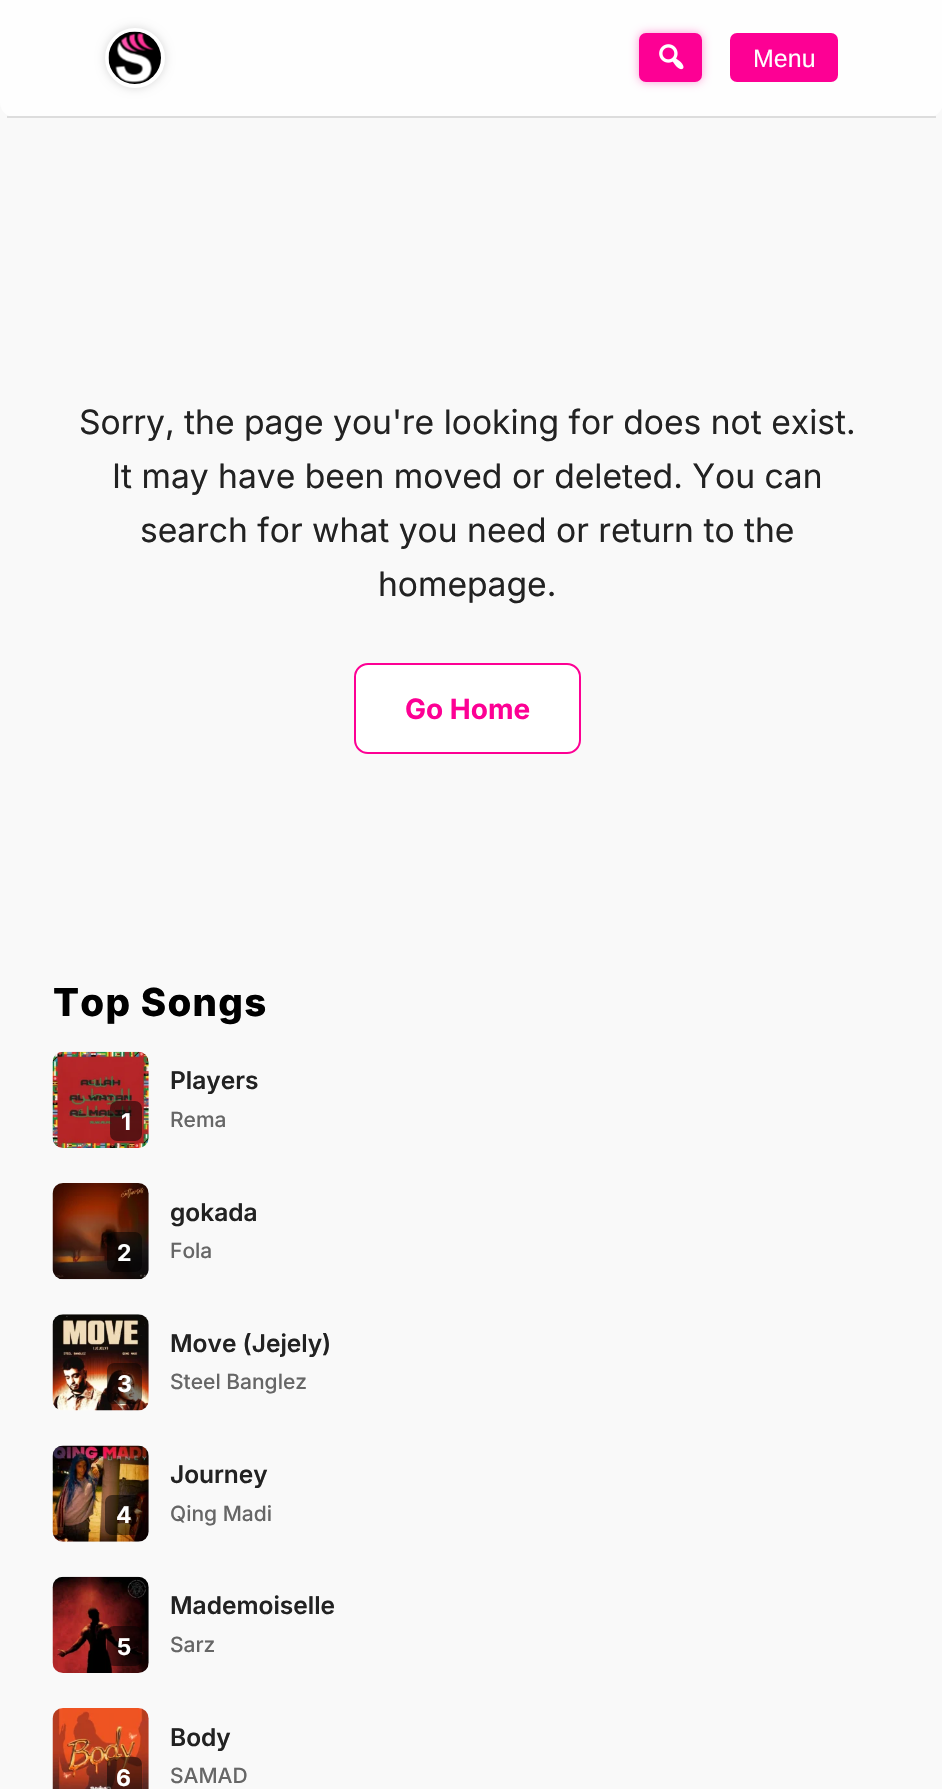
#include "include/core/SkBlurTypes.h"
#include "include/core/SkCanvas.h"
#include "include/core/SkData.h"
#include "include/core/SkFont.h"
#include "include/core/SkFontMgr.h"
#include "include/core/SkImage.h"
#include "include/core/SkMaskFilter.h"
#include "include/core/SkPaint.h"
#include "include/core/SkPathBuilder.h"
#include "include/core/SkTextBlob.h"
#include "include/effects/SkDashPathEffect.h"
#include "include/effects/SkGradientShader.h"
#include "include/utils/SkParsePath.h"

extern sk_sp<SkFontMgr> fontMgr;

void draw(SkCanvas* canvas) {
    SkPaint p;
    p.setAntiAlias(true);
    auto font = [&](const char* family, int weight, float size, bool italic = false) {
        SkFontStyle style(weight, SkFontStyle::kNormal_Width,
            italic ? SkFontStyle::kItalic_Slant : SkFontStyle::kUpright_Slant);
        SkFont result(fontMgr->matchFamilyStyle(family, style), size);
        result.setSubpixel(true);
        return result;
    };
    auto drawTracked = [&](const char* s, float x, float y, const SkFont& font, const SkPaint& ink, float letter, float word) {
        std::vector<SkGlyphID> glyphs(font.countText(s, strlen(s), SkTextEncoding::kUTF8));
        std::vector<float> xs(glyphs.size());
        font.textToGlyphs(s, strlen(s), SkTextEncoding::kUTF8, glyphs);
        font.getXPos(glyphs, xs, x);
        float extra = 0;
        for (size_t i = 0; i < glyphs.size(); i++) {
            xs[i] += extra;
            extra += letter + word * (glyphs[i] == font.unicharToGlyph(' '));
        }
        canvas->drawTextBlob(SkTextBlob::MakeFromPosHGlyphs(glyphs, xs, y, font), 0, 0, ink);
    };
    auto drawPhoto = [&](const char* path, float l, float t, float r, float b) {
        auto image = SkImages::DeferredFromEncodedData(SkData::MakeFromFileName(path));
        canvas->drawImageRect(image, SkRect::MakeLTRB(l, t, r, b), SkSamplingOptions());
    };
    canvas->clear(0xFFF9F9F9);
    p.setColor(0xFFFEFEFE);
    canvas->drawPath(SkPathBuilder().moveTo(0, 0).lineTo(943, 0).lineTo(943, 103).cubicTo(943, 110.5f, 936.5f, 117, 929, 117).lineTo(14, 117).cubicTo(6.5f, 117, 0, 110.5f, 0, 103).close().detach(), p);
    p.setColor(0xFFDDDDDD);
    canvas->drawRect(SkRect::MakeLTRB(7, 116, 936, 118), p);
    p.setColor(0x26000000);
    p.setMaskFilter(SkMaskFilter::MakeBlur(kNormal_SkBlurStyle, 5));
    canvas->drawRoundRect(SkRect::MakeLTRB(105, 28, 165, 88), 30, 30, p);
    p.setMaskFilter(nullptr);
    p.setColor(0xFFFFFFFF);
    canvas->drawCircle(135, 58, 28, p);
    p.setStyle(SkPaint::kStroke_Style);
    p.setStrokeWidth(4);
    canvas->drawCircle(135, 58, 28, p);
    drawPhoto("media/1.png", 108, 31, 161, 84);
    p.setStyle(SkPaint::kFill_Style);
    p.setColor(0x66FD0094);
    p.setMaskFilter(SkMaskFilter::MakeBlur(kNormal_SkBlurStyle, 5));
    canvas->drawRoundRect(SkRect::MakeLTRB(639, 33, 702, 82), 7, 7, p);
    p.setMaskFilter(nullptr);
    p.setColor(0xFFFD0094);
    canvas->drawRoundRect(SkRect::MakeLTRB(639, 33, 702, 82), 7, 7, p);
    drawPhoto("media/2.png", 659, 44, 684, 70);
    canvas->drawRoundRect(SkRect::MakeLTRB(730, 33, 838, 82), 7, 7, p);
    auto font1 = font("Liberation Sans", 400, 25);
    p.setColor(0xFFFFFFFF);
    canvas->drawString("Menu", 753, 67, font1, p);
    auto font2 = font("Inter", 400, 33.6f);
    p.setColor(0xFF222222);
    {
        const struct { const char* s; float x, y; } items[] = {
            {"Sorry, the page you're looking for does not exist.", 79, 434},
            {"It may have been moved or deleted. You can", 112, 488},
            {"search for what you need or return to the", 140, 542},
            {"homepage.", 378, 596},
        };
        for (auto [s, x, y] : items) {
            canvas->drawString(s, x, y, font2, p);
        }
    }
    p.setColor(0xFFFFFFFF);
    canvas->drawRoundRect(SkRect::MakeLTRB(355, 664, 580, 753), 13, 13, p);
    p.setStyle(SkPaint::kStroke_Style);
    p.setStrokeWidth(2);
    p.setColor(0xFFFD0094);
    canvas->drawRoundRect(SkRect::MakeLTRB(355, 664, 580, 753), 13, 13, p);
    auto font3 = font("Inter", 700, 28);
    p.setStyle(SkPaint::kFill_Style);
    canvas->drawString("Go Home", 405, 719, font3, p);
    auto font4 = font("Inter", 800, 38.5f);
    p.setColor(0xFF000000);
    drawTracked("Top Songs", 53, 1016, font4, p, 1.25f, 0);
    drawPhoto("media/3.png", 52, 1051, 149, 1148);
    p.setColor(0x80000000);
    canvas->drawRoundRect(SkRect::MakeLTRB(110, 1101, 142, 1141), 7, 7, p);
    auto font5 = font("Inter", 700, 23);
    p.setColor(0xFFFFFFFF);
    canvas->drawString("1", 121, 1130, font5, p);
    auto font6 = font("Inter", 600, 24.5f);
    p.setColor(0xFF222222);
    canvas->drawString("Players", 170, 1089, font6, p);
    auto font7 = font("Inter", 500, 21);
    p.setColor(0xFF666666);
    canvas->drawString("Rema", 170, 1127, font7, p);
    drawPhoto("media/4.png", 52, 1183, 149, 1280);
    p.setColor(0x80000000);
    canvas->drawRoundRect(SkRect::MakeLTRB(107, 1232, 142, 1272), 7, 7, p);
    p.setColor(0xFFFFFFFF);
    canvas->drawString("2", 117, 1261, font5, p);
    p.setColor(0xFF222222);
    canvas->drawString("gokada", 170, 1221, font6, p);
    p.setColor(0xFF666666);
    canvas->drawString("Fola", 170, 1258, font7, p);
    drawPhoto("media/5.png", 52, 1314, 149, 1411);
    p.setColor(0x80000000);
    canvas->drawRoundRect(SkRect::MakeLTRB(107, 1363, 142, 1404), 7, 7, p);
    p.setColor(0xFFFFFFFF);
    canvas->drawString("3", 117, 1392, font5, p);
    p.setColor(0xFF222222);
    canvas->drawString("Move (Jejely)", 170, 1352, font6, p);
    p.setColor(0xFF666666);
    canvas->drawString("Steel Banglez", 170, 1389, font7, p);
    drawPhoto("media/6.png", 52, 1445, 149, 1542);
    p.setColor(0x80000000);
    canvas->drawRoundRect(SkRect::MakeLTRB(105, 1495, 142, 1535), 7, 7, p);
    p.setColor(0xFFFFFFFF);
    canvas->drawString("4", 116, 1523, font5, p);
    p.setColor(0xFF222222);
    canvas->drawString("Journey", 170, 1483, font6, p);
    p.setColor(0xFF666666);
    canvas->drawString("Qing Madi", 170, 1521, font7, p);
    drawPhoto("media/7.png", 52, 1576, 149, 1673);
    p.setColor(0x80000000);
    canvas->drawRoundRect(SkRect::MakeLTRB(107, 1626, 142, 1666), 7, 7, p);
    p.setColor(0xFFFFFFFF);
    canvas->drawString("5", 117, 1655, font5, p);
    p.setColor(0xFF222222);
    canvas->drawString("Mademoiselle", 170, 1614, font6, p);
    p.setColor(0xFF666666);
    canvas->drawString("Sarz", 170, 1652, font7, p);
    drawPhoto("media/8.png", 52, 1708, 149, 1789);
    p.setColor(0x80000000);
    canvas->drawRoundRect(SkRect::MakeLTRB(107, 1757, 142, 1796), 7, 7, p);
    p.setColor(0xFFFFFFFF);
    canvas->drawString("6", 116, 1786, font5, p);
    p.setColor(0xFF222222);
    canvas->drawString("Body", 170, 1746, font6, p);
    p.setColor(0xFF666666);
    canvas->drawString("SAMAD", 170, 1783, font7, p);
}
